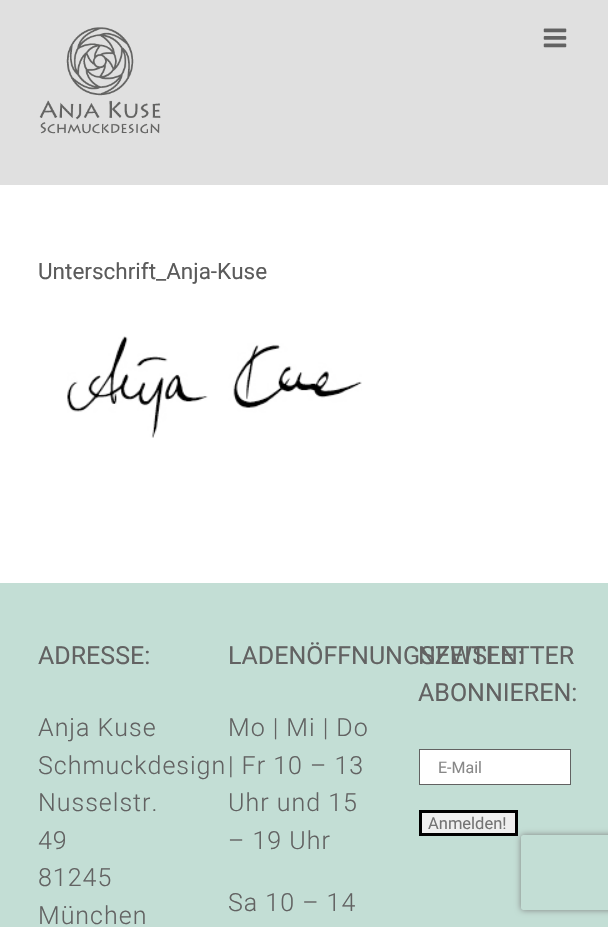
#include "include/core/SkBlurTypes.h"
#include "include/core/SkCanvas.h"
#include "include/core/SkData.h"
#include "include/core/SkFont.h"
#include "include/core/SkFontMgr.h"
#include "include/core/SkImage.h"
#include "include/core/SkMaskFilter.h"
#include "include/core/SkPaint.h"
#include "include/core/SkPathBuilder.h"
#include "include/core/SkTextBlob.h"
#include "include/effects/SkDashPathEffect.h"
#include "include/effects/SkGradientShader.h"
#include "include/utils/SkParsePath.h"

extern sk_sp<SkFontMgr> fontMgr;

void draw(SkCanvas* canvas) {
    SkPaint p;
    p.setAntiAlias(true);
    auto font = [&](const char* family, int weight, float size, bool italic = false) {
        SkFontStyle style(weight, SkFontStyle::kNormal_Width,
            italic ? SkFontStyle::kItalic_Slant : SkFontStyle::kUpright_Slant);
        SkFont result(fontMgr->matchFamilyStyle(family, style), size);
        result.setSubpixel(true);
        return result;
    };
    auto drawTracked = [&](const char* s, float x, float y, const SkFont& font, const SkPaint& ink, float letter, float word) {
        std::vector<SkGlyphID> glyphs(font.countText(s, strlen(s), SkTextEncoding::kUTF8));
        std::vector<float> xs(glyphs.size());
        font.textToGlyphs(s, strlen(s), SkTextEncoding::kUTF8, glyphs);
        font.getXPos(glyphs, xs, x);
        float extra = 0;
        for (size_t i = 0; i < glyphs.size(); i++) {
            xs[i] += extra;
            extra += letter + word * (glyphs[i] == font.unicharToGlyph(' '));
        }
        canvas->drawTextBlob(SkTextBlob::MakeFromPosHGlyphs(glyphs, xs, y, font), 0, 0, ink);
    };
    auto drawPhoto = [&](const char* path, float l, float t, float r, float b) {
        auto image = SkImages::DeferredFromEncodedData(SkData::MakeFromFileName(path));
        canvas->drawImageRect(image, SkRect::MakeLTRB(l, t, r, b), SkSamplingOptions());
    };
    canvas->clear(0xFFFFFFFF);
    p.setColor(0xFFE0E0E0);
    canvas->drawRect(SkRect::MakeLTRB(0, 0, 608, 185), p);
    drawPhoto("media/1.png", 39, 27, 161, 134);
    drawPhoto("media/2.png", 543, 28, 567, 48);
    auto font1 = font("Roboto", 400, 22.5f);
    p.setColor(0xFF5B5B5B);
    canvas->drawString("Unterschrift_Anja-Kuse", 38, 279, font1, p);
    drawPhoto("media/3.png", 67, 336, 362, 438);
    p.setColor(0xFFC3DED5);
    canvas->drawRect(SkRect::MakeLTRB(0, 583, 608, 927), p);
    auto font2 = font("Roboto", 400, 25);
    p.setColor(0xFF626262);
    canvas->drawString("ADRESSE:", 38, 664, font2, p);
    auto font3 = font("Roboto", 300, 25);
    {
        const struct { const char* s; float x, y; } items[] = {
            {"Anja Kuse", 38, 736},
            {"Schmuckdesign", 38, 774},
            {"Nusselstr.", 38, 811},
            {"49", 38, 849},
            {"81245", 38, 886},
            {"München", 38, 924},
        };
        for (auto [s, x, y] : items) {
            drawTracked(s, x, y, font3, p, 1, 0);
        }
    }
    canvas->drawString("LADENÖFFNUNGSZEITEN:", 228, 664, font2, p);
    {
        const struct { const char* s; float x, y; } items[] = {
            {"Mo | Mi | Do", 228, 736},
            {"| Fr 10 – 13", 228, 774},
            {"Uhr und 15", 228, 811},
            {"– 19 Uhr", 228, 849},
            {"Sa 10 – 14", 228, 911},
        };
        for (auto [s, x, y] : items) {
            drawTracked(s, x, y, font3, p, 1, 0);
        }
    }
    canvas->drawString("NEWSLETTER", 418, 664, font2, p);
    canvas->drawString("ABONNIEREN:", 418, 701, font2, p);
    p.setColor(0xFFFFFFFF);
    canvas->drawRect(SkRect::MakeLTRB(419.5f, 749.5f, 570.5f, 784.5f), p);
    p.setStyle(SkPaint::kStroke_Style);
    p.setStrokeWidth(1);
    p.setColor(0xFF626262);
    canvas->drawRect(SkRect::MakeLTRB(419.5f, 749.5f, 570.5f, 784.5f), p);
    auto font4 = font("Roboto", 400, 16);
    p.setStyle(SkPaint::kFill_Style);
    p.setColor(0xFF888888);
    canvas->drawString("E-Mail", 438, 773, font4, p);
    p.setColor(0xFFEFEFEF);
    canvas->drawRect(SkRect::MakeLTRB(420.5f, 811.5f, 516.5f, 834.5f), p);
    p.setStyle(SkPaint::kStroke_Style);
    p.setStrokeWidth(3);
    p.setColor(0xFF000000);
    canvas->drawRect(SkRect::MakeLTRB(420.5f, 811.5f, 516.5f, 834.5f), p);
    auto font5 = font("Roboto", 400, 16.5f);
    p.setStyle(SkPaint::kFill_Style);
    p.setColor(0xFF747474);
    canvas->drawString("Anmelden!", 428, 829, font5, p);
    canvas->save();
    canvas->clipPath(SkPathBuilder(SkPathFillType::kEvenOdd).moveTo(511, 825).lineTo(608, 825).lineTo(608, 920).lineTo(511, 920).close().moveTo(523.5f, 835).lineTo(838.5f, 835).cubicTo(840, 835, 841, 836, 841, 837.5f).lineTo(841, 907.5f).cubicTo(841, 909, 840, 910, 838.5f, 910).lineTo(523.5f, 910).cubicTo(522, 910, 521, 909, 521, 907.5f).lineTo(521, 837.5f).cubicTo(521, 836, 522, 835, 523.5f, 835).close().detach(), true);
    p.setColor(0xFF808080);
    p.setMaskFilter(SkMaskFilter::MakeBlur(kNormal_SkBlurStyle, 3));
    canvas->drawRoundRect(SkRect::MakeLTRB(521, 835, 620, 910), 2.5f, 2.5f, p);
    p.setMaskFilter(nullptr);
    canvas->restore();
}
